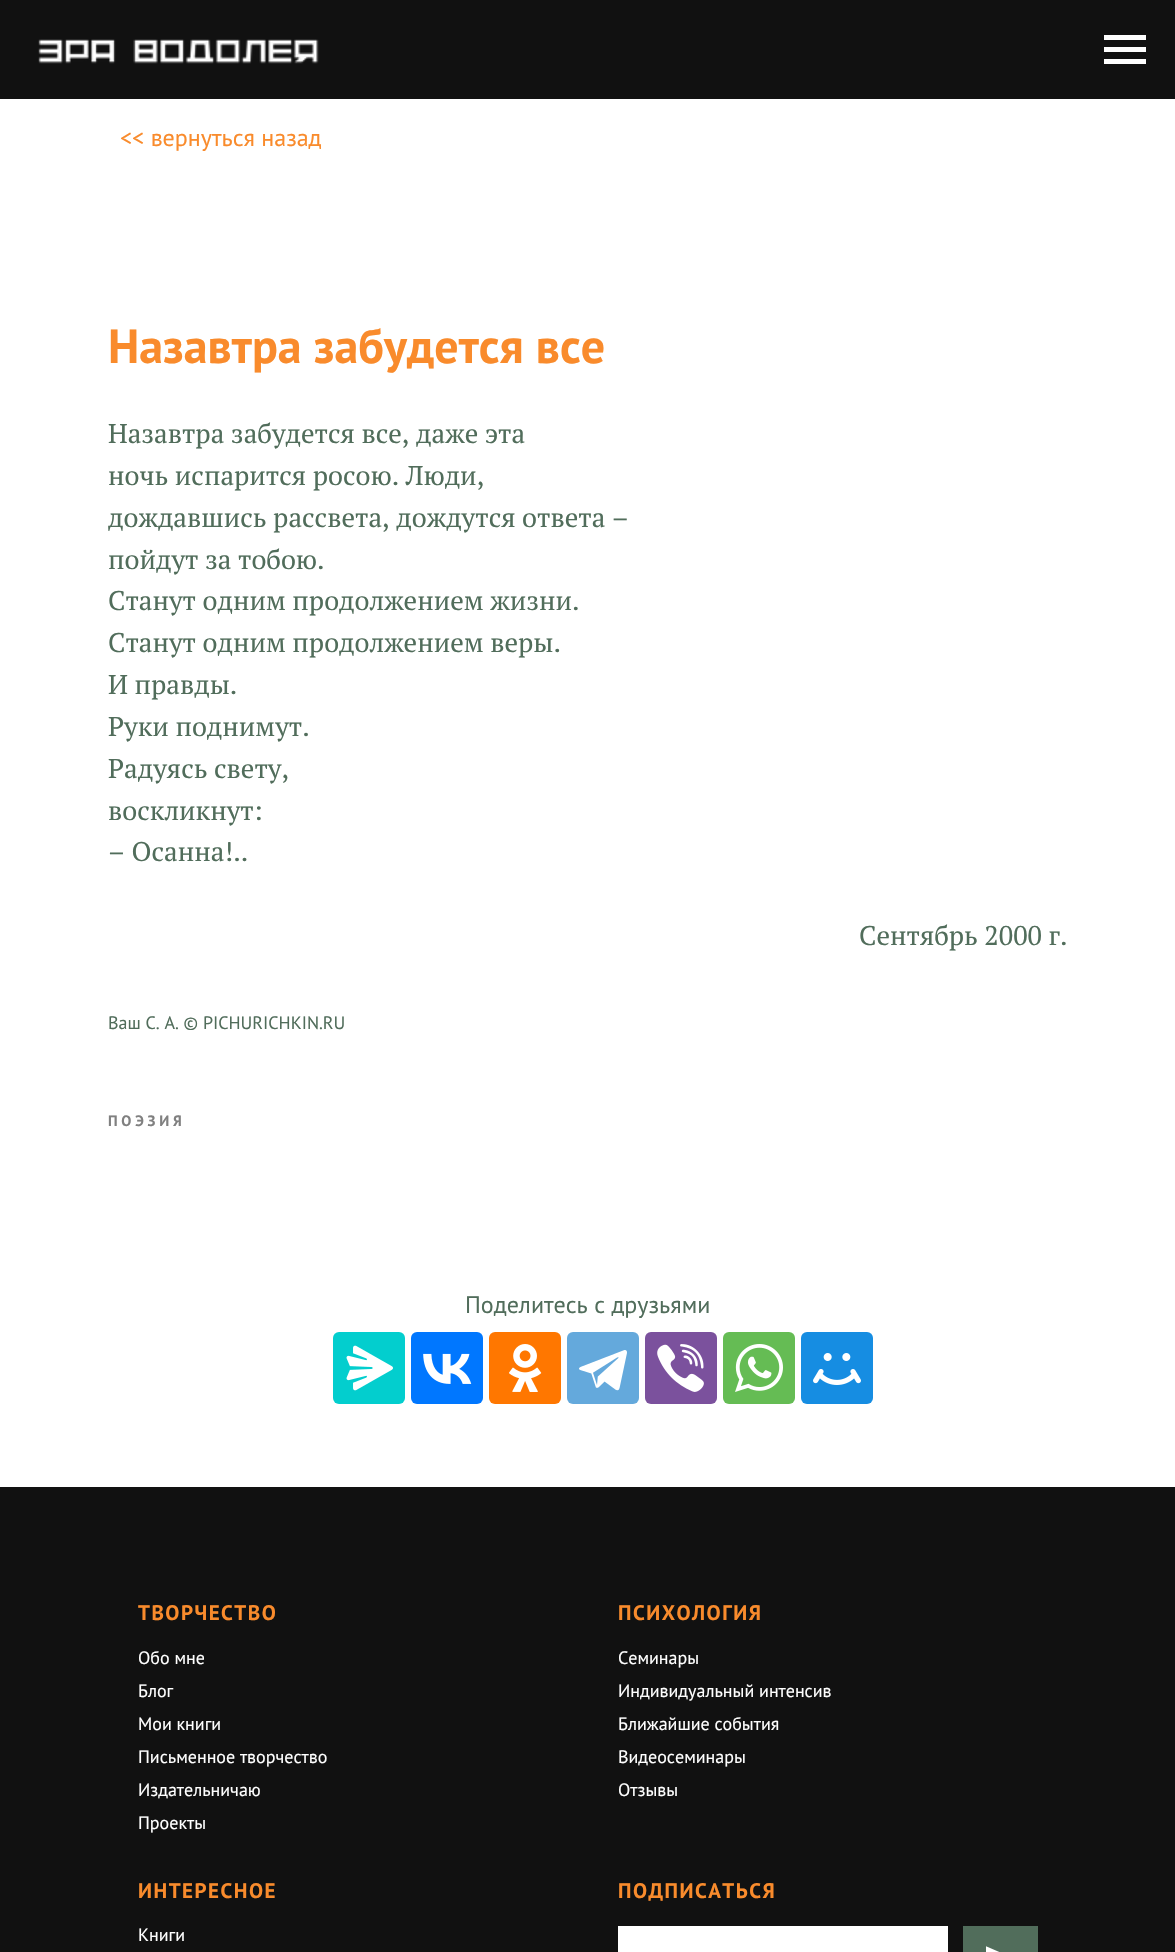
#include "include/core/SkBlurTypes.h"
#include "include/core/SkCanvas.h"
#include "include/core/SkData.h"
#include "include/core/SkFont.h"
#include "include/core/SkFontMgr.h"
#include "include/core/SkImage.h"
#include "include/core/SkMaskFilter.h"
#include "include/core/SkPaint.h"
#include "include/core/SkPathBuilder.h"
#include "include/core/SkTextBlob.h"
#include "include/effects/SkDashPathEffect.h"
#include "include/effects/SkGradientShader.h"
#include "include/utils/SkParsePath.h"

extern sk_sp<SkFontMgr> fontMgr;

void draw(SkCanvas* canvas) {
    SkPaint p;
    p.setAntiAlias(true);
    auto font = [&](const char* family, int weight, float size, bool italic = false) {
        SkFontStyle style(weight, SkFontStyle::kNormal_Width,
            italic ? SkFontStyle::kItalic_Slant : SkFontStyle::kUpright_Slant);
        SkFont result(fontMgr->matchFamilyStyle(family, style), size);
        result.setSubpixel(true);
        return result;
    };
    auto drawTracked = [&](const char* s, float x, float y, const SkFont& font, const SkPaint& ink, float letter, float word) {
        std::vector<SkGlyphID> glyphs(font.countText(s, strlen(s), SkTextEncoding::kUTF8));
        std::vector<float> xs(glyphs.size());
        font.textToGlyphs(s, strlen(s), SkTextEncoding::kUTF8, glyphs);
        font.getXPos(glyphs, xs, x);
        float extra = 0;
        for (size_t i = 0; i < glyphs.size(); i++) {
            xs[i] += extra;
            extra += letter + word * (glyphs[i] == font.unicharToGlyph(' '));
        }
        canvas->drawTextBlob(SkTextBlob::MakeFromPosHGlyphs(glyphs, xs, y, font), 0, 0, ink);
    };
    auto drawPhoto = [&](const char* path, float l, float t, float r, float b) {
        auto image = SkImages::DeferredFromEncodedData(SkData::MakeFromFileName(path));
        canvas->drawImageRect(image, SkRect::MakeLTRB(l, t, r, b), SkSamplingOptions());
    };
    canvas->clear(0xFF111111);
    drawPhoto("media/1.png", 38, 39, 319, 64);
    {
        const struct { float l, t, r, b; SkColor color; } items[] = {
            {1104, 35, 1146, 40, 0xFFFFFFFF},
            {1104, 47, 1146, 52, 0xFFFFFFFF},
            {1104, 59, 1146, 64, 0xFFFFFFFF},
            {0, 99, 1175, 1487, 0xFFFFFFFF},
        };
        for (auto [l, t, r, b, color] : items) {
            p.setColor(color);
            canvas->drawRect(SkRect::MakeLTRB(l, t, r, b), p);
        }
    }
    auto font1 = font("PT Sans", 400, 24);
    p.setColor(0xFFF98B2C);
    canvas->drawString("<< вернуться назад", 120, 146, font1, p);
    auto font2 = font("PT Sans", 700, 48);
    canvas->drawString("Назавтра забудется все", 108, 363, font2, p);
    auto font3 = font("PT Serif", 400, 27);
    p.setColor(0xFF516D5B);
    {
        const struct { const char* s; float x, y; } items[] = {
            {"Назавтра забудется все, даже эта", 108, 443},
            {"ночь испарится росою. Люди,", 108, 485},
            {"дождавшись рассвета, дождутся ответа –", 108, 527},
            {"пойдут за тобою.", 108, 569},
            {"Станут одним продолжением жизни.", 108, 610},
            {"Станут одним продолжением веры.", 108, 652},
            {"И правды.", 108, 694},
            {"Руки поднимут.", 108, 736},
            {"Радуясь свету,", 108, 778},
            {"воскликнут:", 108, 820},
            {"– Осанна!..", 108, 861},
            {"Сентябрь 2000 г.", 859, 945},
        };
        for (auto [s, x, y] : items) {
            canvas->drawString(s, x, y, font3, p);
        }
    }
    auto font4 = font("PT Sans", 400, 18);
    canvas->drawString("Ваш С. А. © PICHURICHKIN.RU", 108, 1029, font4, p);
    auto font5 = font("PT Sans", 700, 15);
    p.setColor(0xFF808080);
    drawTracked("ПОЭЗИЯ", 108, 1126, font5, p, 3.75f, 0);
    p.setColor(0xFF516D5B);
    canvas->drawString("Поделитесь с друзьями", 465, 1313, font1, p);
    p.setColor(0xFF03CECE);
    canvas->drawRoundRect(SkRect::MakeLTRB(333, 1332, 405, 1404), 6, 6, p);
    drawPhoto("media/2.png", 346, 1345, 393, 1391);
    p.setColor(0xFF0077FF);
    canvas->drawRoundRect(SkRect::MakeLTRB(411, 1332, 483, 1404), 6, 6, p);
    drawPhoto("media/3.png", 423, 1353, 472, 1384);
    p.setColor(0xFFFF7700);
    canvas->drawRoundRect(SkRect::MakeLTRB(489, 1332, 561, 1404), 6, 6, p);
    drawPhoto("media/4.png", 509, 1344, 542, 1392);
    p.setColor(0xFF64A9DC);
    canvas->drawRoundRect(SkRect::MakeLTRB(567, 1332, 639, 1404), 6, 6, p);
    drawPhoto("media/5.png", 579, 1350, 627, 1391);
    p.setColor(0xFF7B519D);
    canvas->drawRoundRect(SkRect::MakeLTRB(645, 1332, 717, 1404), 6, 6, p);
    drawPhoto("media/6.png", 657, 1344, 704, 1392);
    p.setColor(0xFF65BC54);
    canvas->drawRoundRect(SkRect::MakeLTRB(723, 1332, 795, 1404), 6, 6, p);
    drawPhoto("media/7.png", 735, 1344, 783, 1392);
    p.setColor(0xFF168DE2);
    canvas->drawRoundRect(SkRect::MakeLTRB(801, 1332, 873, 1404), 6, 6, p);
    drawPhoto("media/8.png", 813, 1353, 861, 1385);
    auto font6 = font("PT Sans", 700, 21);
    p.setColor(0xFFF98B2C);
    drawTracked("ТВОРЧЕСТВО", 138, 1620, font6, p, 1.5f, 0);
    p.setColor(0xFFFFFFFF);
    {
        const struct { const char* s; float x, y; } items[] = {
            {"Обо мне", 138, 1664},
            {"Блог", 138, 1697},
            {"Мои книги", 138, 1730},
            {"Письменное творчество", 138, 1763},
            {"Издательничаю", 138, 1796},
            {"Проекты", 138, 1829},
        };
        for (auto [s, x, y] : items) {
            canvas->drawString(s, x, y, font4, p);
        }
    }
    p.setColor(0xFFF98B2C);
    drawTracked("ПСИХОЛОГИЯ", 618, 1620, font6, p, 1.5f, 0);
    p.setColor(0xFFFFFFFF);
    {
        const struct { const char* s; float x, y; } items[] = {
            {"Семинары", 618, 1664},
            {"Индивидуальный интенсив", 618, 1697},
            {"Ближайшие события", 618, 1730},
            {"Видеосеминары", 618, 1763},
            {"Отзывы", 618, 1796},
        };
        for (auto [s, x, y] : items) {
            canvas->drawString(s, x, y, font4, p);
        }
    }
    p.setColor(0xFFF98B2C);
    drawTracked("ИНТЕРЕСНОЕ", 138, 1898, font6, p, 1.5f, 0);
    p.setColor(0xFFFFFFFF);
    canvas->drawString("Книги", 138, 1941, font4, p);
    p.setColor(0xFFF98B2C);
    drawTracked("ПОДПИСАТЬСЯ", 618, 1898, font6, p, 1.5f, 0);
    p.setColor(0xFFFFFFFF);
    canvas->drawRect(SkRect::MakeLTRB(618, 1926, 948, 1952), p);
    p.setColor(0xFF516D5B);
    canvas->drawRect(SkRect::MakeLTRB(963, 1926, 1038, 1952), p);
    canvas->save();
    canvas->clipRect(SkRect::MakeLTRB(986, 1944, 1016, 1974));
    p.setColor(0xFFFFFFFF);
    canvas->drawPath(SkPathBuilder().moveTo(985.5f, 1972).lineTo(1015.5f, 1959).lineTo(985.5f, 1946).lineTo(985.5f, 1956).lineTo(1007, 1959).lineTo(985.5f, 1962).close().detach(), p);
    canvas->restore();
}
